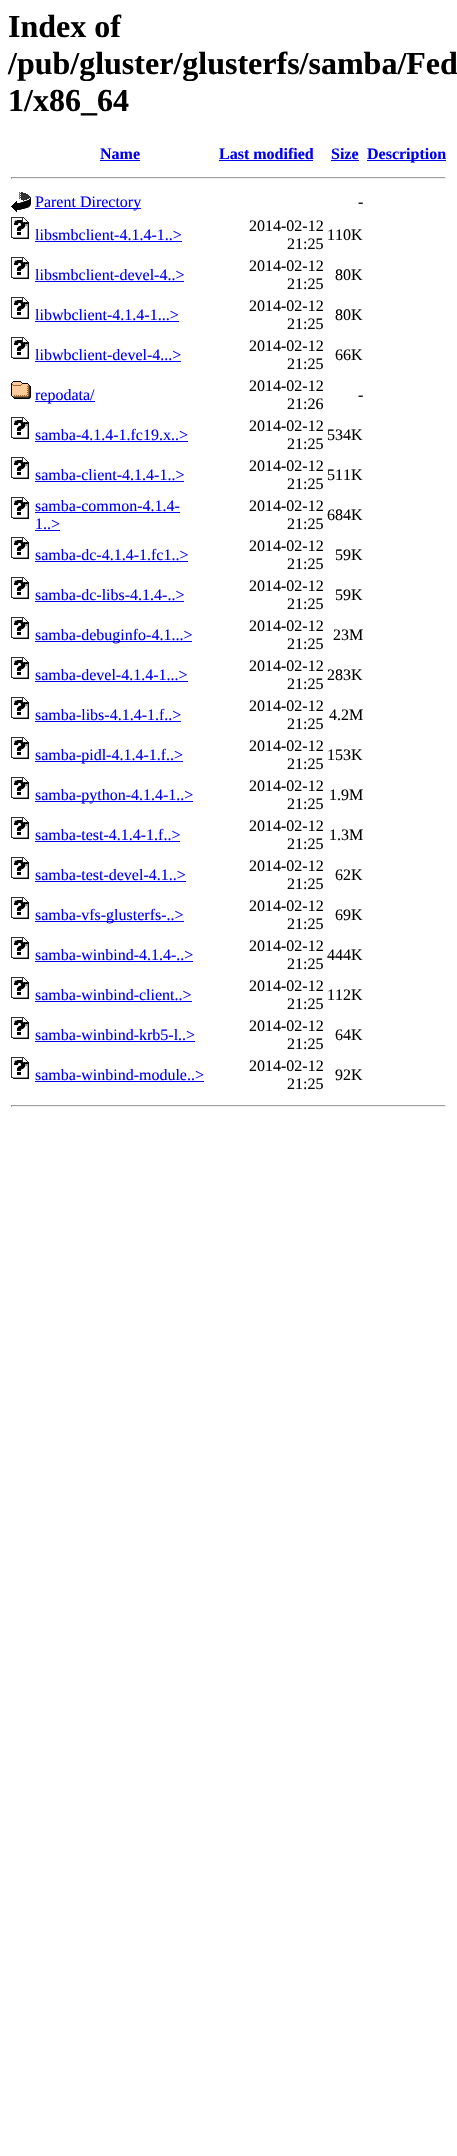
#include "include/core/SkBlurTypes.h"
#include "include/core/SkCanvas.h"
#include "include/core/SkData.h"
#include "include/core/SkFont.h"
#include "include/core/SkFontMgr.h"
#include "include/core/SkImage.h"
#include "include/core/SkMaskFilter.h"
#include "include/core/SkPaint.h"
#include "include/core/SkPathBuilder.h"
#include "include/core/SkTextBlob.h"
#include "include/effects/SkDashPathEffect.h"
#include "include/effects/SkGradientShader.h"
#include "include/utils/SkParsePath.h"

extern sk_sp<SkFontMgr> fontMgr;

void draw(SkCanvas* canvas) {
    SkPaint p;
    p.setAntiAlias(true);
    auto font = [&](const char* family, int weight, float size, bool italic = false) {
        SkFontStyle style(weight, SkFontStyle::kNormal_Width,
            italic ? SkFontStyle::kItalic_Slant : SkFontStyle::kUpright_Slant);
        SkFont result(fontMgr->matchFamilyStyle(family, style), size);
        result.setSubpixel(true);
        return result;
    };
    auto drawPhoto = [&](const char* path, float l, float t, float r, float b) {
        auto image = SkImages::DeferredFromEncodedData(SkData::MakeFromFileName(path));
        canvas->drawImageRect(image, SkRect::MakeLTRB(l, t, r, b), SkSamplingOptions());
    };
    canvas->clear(0xFFFFFFFF);
    auto font1 = font("Liberation Serif", 700, 32);
    p.setColor(0xFF000000);
    {
        const struct { const char* s; float x, y; } items[] = {
            {"Index of", 8, 37},
            {"/pub/gluster/glusterfs/samba/Fed", 8, 74},
            {"1/x86_64", 8, 111},
        };
        for (auto [s, x, y] : items) {
            canvas->drawString(s, x, y, font1, p);
        }
    }
    auto font2 = font("Liberation Serif", 700, 16);
    p.setColor(0xFF0000EE);
    canvas->drawString("Name", 100, 159, font2, p);
    canvas->drawRect(SkRect::MakeLTRB(100, 160, 140, 161), p);
    canvas->drawString("Last modified", 219, 159, font2, p);
    canvas->drawRect(SkRect::MakeLTRB(219, 160, 313, 161), p);
    canvas->drawString("Size", 331, 159, font2, p);
    canvas->drawRect(SkRect::MakeLTRB(331, 160, 359, 161), p);
    canvas->drawRect(SkRect::MakeLTRB(367, 160, 446, 161), p);
    canvas->drawString("Description", 367, 159, font2, p);
    {
        const struct { float l, t, r, b; SkColor color; } items[] = {
            {11, 177, 446, 178, 0xFF9F9F9F},
            {445, 177, 446, 179, 0xFFEEEEEE},
            {11, 178, 446, 179, 0xFFEEEEEE},
            {11, 177, 12, 179, 0xFF9F9F9F},
        };
        for (auto [l, t, r, b, color] : items) {
            p.setColor(color);
            canvas->drawRect(SkRect::MakeLTRB(l, t, r, b), p);
        }
    }
    drawPhoto("media/1.png", 11, 192, 31, 212);
    p.setColor(0xFF0000EE);
    canvas->drawRect(SkRect::MakeLTRB(35, 208, 141, 209), p);
    auto font3 = font("Liberation Serif", 400, 16);
    canvas->drawString("Parent Directory", 35, 207, font3, p);
    p.setColor(0xFF000000);
    canvas->drawString("-", 358, 207, font3, p);
    drawPhoto("media/2.png", 11, 217, 29, 239);
    p.setColor(0xFF0000EE);
    canvas->drawString("libsmbclient-4.1.4-1..>", 35, 240, font3, p);
    canvas->drawRect(SkRect::MakeLTRB(35, 241, 182, 242), p);
    p.setColor(0xFF000000);
    {
        const struct { const char* s; float x, y; } items[] = {
            {"2014-02-12", 249, 231},
            {"21:25", 287, 249},
            {"110K", 327, 240},
        };
        for (auto [s, x, y] : items) {
            canvas->drawString(s, x, y, font3, p);
        }
    }
    drawPhoto("media/2.png", 11, 257, 29, 279);
    p.setColor(0xFF0000EE);
    canvas->drawString("libsmbclient-devel-4..>", 35, 280, font3, p);
    canvas->drawRect(SkRect::MakeLTRB(35, 281, 184, 282), p);
    p.setColor(0xFF000000);
    {
        const struct { const char* s; float x, y; } items[] = {
            {"2014-02-12", 249, 271},
            {"21:25", 287, 289},
            {"80K", 335, 280},
        };
        for (auto [s, x, y] : items) {
            canvas->drawString(s, x, y, font3, p);
        }
    }
    drawPhoto("media/2.png", 11, 297, 29, 319);
    p.setColor(0xFF0000EE);
    canvas->drawString("libwbclient-4.1.4-1...>", 35, 320, font3, p);
    canvas->drawRect(SkRect::MakeLTRB(35, 321, 179, 322), p);
    p.setColor(0xFF000000);
    {
        const struct { const char* s; float x, y; } items[] = {
            {"2014-02-12", 249, 311},
            {"21:25", 287, 329},
            {"80K", 335, 320},
        };
        for (auto [s, x, y] : items) {
            canvas->drawString(s, x, y, font3, p);
        }
    }
    drawPhoto("media/2.png", 11, 337, 29, 359);
    p.setColor(0xFF0000EE);
    canvas->drawString("libwbclient-devel-4...>", 35, 360, font3, p);
    canvas->drawRect(SkRect::MakeLTRB(35, 361, 181, 362), p);
    p.setColor(0xFF000000);
    {
        const struct { const char* s; float x, y; } items[] = {
            {"2014-02-12", 249, 351},
            {"21:25", 287, 369},
            {"66K", 335, 360},
        };
        for (auto [s, x, y] : items) {
            canvas->drawString(s, x, y, font3, p);
        }
    }
    drawPhoto("media/3.png", 11, 381, 31, 399);
    p.setColor(0xFF0000EE);
    canvas->drawRect(SkRect::MakeLTRB(35, 401, 95, 402), p);
    canvas->drawString("repodata/", 35, 400, font3, p);
    p.setColor(0xFF000000);
    {
        const struct { const char* s; float x, y; } items[] = {
            {"2014-02-12", 249, 391},
            {"21:26", 287, 409},
            {"-", 358, 400},
        };
        for (auto [s, x, y] : items) {
            canvas->drawString(s, x, y, font3, p);
        }
    }
    drawPhoto("media/2.png", 11, 417, 29, 439);
    p.setColor(0xFF0000EE);
    canvas->drawString("samba-4.1.4-1.fc19.x..>", 35, 440, font3, p);
    canvas->drawRect(SkRect::MakeLTRB(35, 441, 188, 442), p);
    p.setColor(0xFF000000);
    {
        const struct { const char* s; float x, y; } items[] = {
            {"2014-02-12", 249, 431},
            {"21:25", 287, 449},
            {"534K", 327, 440},
        };
        for (auto [s, x, y] : items) {
            canvas->drawString(s, x, y, font3, p);
        }
    }
    drawPhoto("media/2.png", 11, 457, 29, 479);
    p.setColor(0xFF0000EE);
    canvas->drawString("samba-client-4.1.4-1..>", 35, 480, font3, p);
    canvas->drawRect(SkRect::MakeLTRB(35, 481, 184, 482), p);
    p.setColor(0xFF000000);
    {
        const struct { const char* s; float x, y; } items[] = {
            {"2014-02-12", 249, 471},
            {"21:25", 287, 489},
            {"511K", 327, 480},
        };
        for (auto [s, x, y] : items) {
            canvas->drawString(s, x, y, font3, p);
        }
    }
    drawPhoto("media/2.png", 11, 497, 29, 519);
    p.setColor(0xFF0000EE);
    canvas->drawString("samba-common-4.1.4-", 35, 511, font3, p);
    canvas->drawRect(SkRect::MakeLTRB(35, 512, 180, 513), p);
    canvas->drawString("1..>", 35, 529, font3, p);
    canvas->drawRect(SkRect::MakeLTRB(35, 530, 60, 531), p);
    p.setColor(0xFF000000);
    {
        const struct { const char* s; float x, y; } items[] = {
            {"2014-02-12", 249, 511},
            {"21:25", 287, 529},
            {"684K", 327, 520},
        };
        for (auto [s, x, y] : items) {
            canvas->drawString(s, x, y, font3, p);
        }
    }
    drawPhoto("media/2.png", 11, 537, 29, 559);
    p.setColor(0xFF0000EE);
    canvas->drawString("samba-dc-4.1.4-1.fc1..>", 35, 560, font3, p);
    canvas->drawRect(SkRect::MakeLTRB(35, 561, 188, 562), p);
    p.setColor(0xFF000000);
    {
        const struct { const char* s; float x, y; } items[] = {
            {"2014-02-12", 249, 551},
            {"21:25", 287, 569},
            {"59K", 335, 560},
        };
        for (auto [s, x, y] : items) {
            canvas->drawString(s, x, y, font3, p);
        }
    }
    drawPhoto("media/2.png", 11, 577, 29, 599);
    p.setColor(0xFF0000EE);
    canvas->drawString("samba-dc-libs-4.1.4-..>", 35, 600, font3, p);
    canvas->drawRect(SkRect::MakeLTRB(35, 601, 184, 602), p);
    p.setColor(0xFF000000);
    {
        const struct { const char* s; float x, y; } items[] = {
            {"2014-02-12", 249, 591},
            {"21:25", 287, 609},
            {"59K", 335, 600},
        };
        for (auto [s, x, y] : items) {
            canvas->drawString(s, x, y, font3, p);
        }
    }
    drawPhoto("media/2.png", 11, 617, 29, 639);
    p.setColor(0xFF0000EE);
    canvas->drawRect(SkRect::MakeLTRB(35, 641, 192, 642), p);
    canvas->drawString("samba-debuginfo-4.1...>", 35, 640, font3, p);
    p.setColor(0xFF000000);
    {
        const struct { const char* s; float x, y; } items[] = {
            {"2014-02-12", 249, 631},
            {"21:25", 287, 649},
            {"23M", 333, 640},
        };
        for (auto [s, x, y] : items) {
            canvas->drawString(s, x, y, font3, p);
        }
    }
    drawPhoto("media/2.png", 11, 657, 29, 679);
    p.setColor(0xFF0000EE);
    canvas->drawString("samba-devel-4.1.4-1...>", 35, 680, font3, p);
    canvas->drawRect(SkRect::MakeLTRB(35, 681, 188, 682), p);
    p.setColor(0xFF000000);
    {
        const struct { const char* s; float x, y; } items[] = {
            {"2014-02-12", 249, 671},
            {"21:25", 287, 689},
            {"283K", 327, 680},
        };
        for (auto [s, x, y] : items) {
            canvas->drawString(s, x, y, font3, p);
        }
    }
    drawPhoto("media/2.png", 11, 697, 29, 719);
    p.setColor(0xFF0000EE);
    canvas->drawString("samba-libs-4.1.4-1.f..>", 35, 720, font3, p);
    canvas->drawRect(SkRect::MakeLTRB(35, 721, 181, 722), p);
    p.setColor(0xFF000000);
    {
        const struct { const char* s; float x, y; } items[] = {
            {"2014-02-12", 249, 711},
            {"21:25", 287, 729},
            {"4.2M", 329, 720},
        };
        for (auto [s, x, y] : items) {
            canvas->drawString(s, x, y, font3, p);
        }
    }
    drawPhoto("media/2.png", 11, 737, 29, 759);
    p.setColor(0xFF0000EE);
    canvas->drawRect(SkRect::MakeLTRB(35, 761, 183, 762), p);
    canvas->drawString("samba-pidl-4.1.4-1.f..>", 35, 760, font3, p);
    p.setColor(0xFF000000);
    {
        const struct { const char* s; float x, y; } items[] = {
            {"2014-02-12", 249, 751},
            {"21:25", 287, 769},
            {"153K", 327, 760},
        };
        for (auto [s, x, y] : items) {
            canvas->drawString(s, x, y, font3, p);
        }
    }
    drawPhoto("media/2.png", 11, 777, 29, 799);
    p.setColor(0xFF0000EE);
    canvas->drawRect(SkRect::MakeLTRB(35, 801, 193, 802), p);
    canvas->drawString("samba-python-4.1.4-1..>", 35, 800, font3, p);
    p.setColor(0xFF000000);
    {
        const struct { const char* s; float x, y; } items[] = {
            {"2014-02-12", 249, 791},
            {"21:25", 287, 809},
            {"1.9M", 329, 800},
        };
        for (auto [s, x, y] : items) {
            canvas->drawString(s, x, y, font3, p);
        }
    }
    drawPhoto("media/2.png", 11, 817, 29, 839);
    p.setColor(0xFF0000EE);
    canvas->drawString("samba-test-4.1.4-1.f..>", 35, 840, font3, p);
    canvas->drawRect(SkRect::MakeLTRB(35, 841, 180, 842), p);
    p.setColor(0xFF000000);
    {
        const struct { const char* s; float x, y; } items[] = {
            {"2014-02-12", 249, 831},
            {"21:25", 287, 849},
            {"1.3M", 329, 840},
        };
        for (auto [s, x, y] : items) {
            canvas->drawString(s, x, y, font3, p);
        }
    }
    drawPhoto("media/2.png", 11, 857, 29, 879);
    p.setColor(0xFF0000EE);
    canvas->drawString("samba-test-devel-4.1..>", 35, 880, font3, p);
    canvas->drawRect(SkRect::MakeLTRB(35, 881, 186, 882), p);
    p.setColor(0xFF000000);
    {
        const struct { const char* s; float x, y; } items[] = {
            {"2014-02-12", 249, 871},
            {"21:25", 287, 889},
            {"62K", 335, 880},
        };
        for (auto [s, x, y] : items) {
            canvas->drawString(s, x, y, font3, p);
        }
    }
    drawPhoto("media/2.png", 11, 897, 29, 919);
    p.setColor(0xFF0000EE);
    canvas->drawRect(SkRect::MakeLTRB(35, 921, 184, 922), p);
    canvas->drawString("samba-vfs-glusterfs-..>", 35, 920, font3, p);
    p.setColor(0xFF000000);
    {
        const struct { const char* s; float x, y; } items[] = {
            {"2014-02-12", 249, 911},
            {"21:25", 287, 929},
            {"69K", 335, 920},
        };
        for (auto [s, x, y] : items) {
            canvas->drawString(s, x, y, font3, p);
        }
    }
    drawPhoto("media/2.png", 11, 937, 29, 959);
    p.setColor(0xFF0000EE);
    canvas->drawString("samba-winbind-4.1.4-..>", 35, 960, font3, p);
    canvas->drawRect(SkRect::MakeLTRB(35, 961, 193, 962), p);
    p.setColor(0xFF000000);
    {
        const struct { const char* s; float x, y; } items[] = {
            {"2014-02-12", 249, 951},
            {"21:25", 287, 969},
            {"444K", 327, 960},
        };
        for (auto [s, x, y] : items) {
            canvas->drawString(s, x, y, font3, p);
        }
    }
    drawPhoto("media/2.png", 11, 977, 29, 999);
    p.setColor(0xFF0000EE);
    canvas->drawString("samba-winbind-client..>", 35, 1000, font3, p);
    canvas->drawRect(SkRect::MakeLTRB(35, 1001, 192, 1002), p);
    p.setColor(0xFF000000);
    {
        const struct { const char* s; float x, y; } items[] = {
            {"2014-02-12", 249, 991},
            {"21:25", 287, 1009},
            {"112K", 327, 1000},
        };
        for (auto [s, x, y] : items) {
            canvas->drawString(s, x, y, font3, p);
        }
    }
    drawPhoto("media/2.png", 11, 1017, 29, 1039);
    p.setColor(0xFF0000EE);
    canvas->drawString("samba-winbind-krb5-l..>", 35, 1040, font3, p);
    canvas->drawRect(SkRect::MakeLTRB(35, 1041, 195, 1042), p);
    p.setColor(0xFF000000);
    {
        const struct { const char* s; float x, y; } items[] = {
            {"2014-02-12", 249, 1031},
            {"21:25", 287, 1049},
            {"64K", 335, 1040},
        };
        for (auto [s, x, y] : items) {
            canvas->drawString(s, x, y, font3, p);
        }
    }
    drawPhoto("media/2.png", 11, 1057, 29, 1079);
    p.setColor(0xFF0000EE);
    canvas->drawString("samba-winbind-module..>", 35, 1080, font3, p);
    canvas->drawRect(SkRect::MakeLTRB(35, 1081, 204, 1082), p);
    p.setColor(0xFF000000);
    {
        const struct { const char* s; float x, y; } items[] = {
            {"2014-02-12", 249, 1071},
            {"21:25", 287, 1089},
            {"92K", 335, 1080},
        };
        for (auto [s, x, y] : items) {
            canvas->drawString(s, x, y, font3, p);
        }
    }
    {
        const struct { float l, t, r, b; SkColor color; } items[] = {
            {11, 1105, 446, 1106, 0xFF9F9F9F},
            {445, 1105, 446, 1107, 0xFFEEEEEE},
            {11, 1106, 446, 1107, 0xFFEEEEEE},
            {11, 1105, 12, 1107, 0xFF9F9F9F},
        };
        for (auto [l, t, r, b, color] : items) {
            p.setColor(color);
            canvas->drawRect(SkRect::MakeLTRB(l, t, r, b), p);
        }
    }
}
